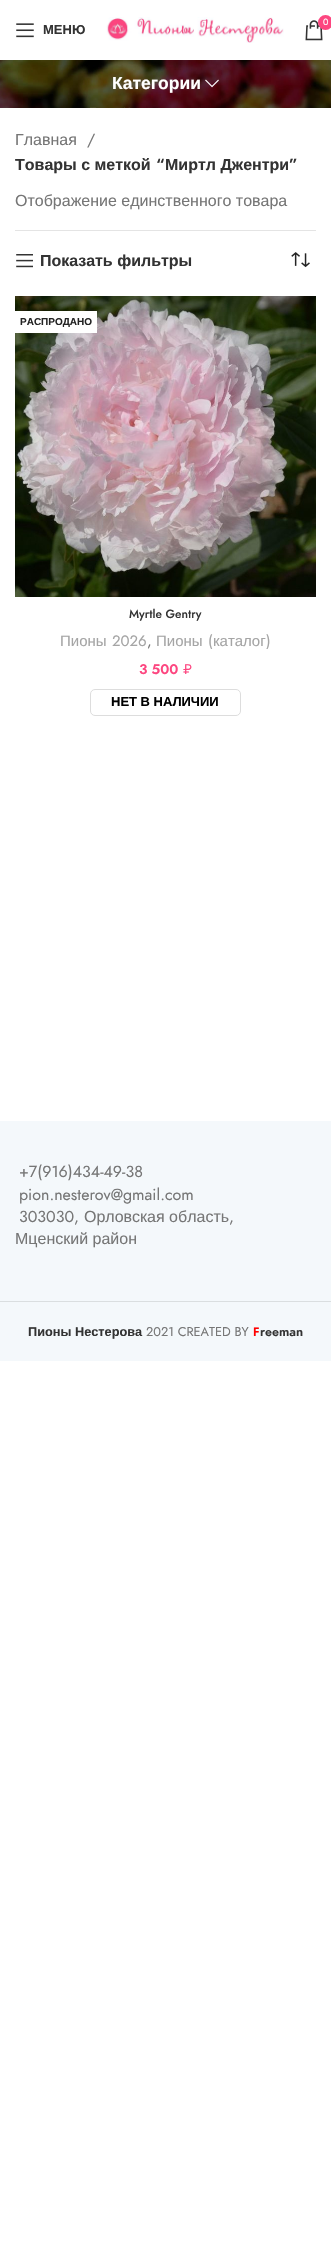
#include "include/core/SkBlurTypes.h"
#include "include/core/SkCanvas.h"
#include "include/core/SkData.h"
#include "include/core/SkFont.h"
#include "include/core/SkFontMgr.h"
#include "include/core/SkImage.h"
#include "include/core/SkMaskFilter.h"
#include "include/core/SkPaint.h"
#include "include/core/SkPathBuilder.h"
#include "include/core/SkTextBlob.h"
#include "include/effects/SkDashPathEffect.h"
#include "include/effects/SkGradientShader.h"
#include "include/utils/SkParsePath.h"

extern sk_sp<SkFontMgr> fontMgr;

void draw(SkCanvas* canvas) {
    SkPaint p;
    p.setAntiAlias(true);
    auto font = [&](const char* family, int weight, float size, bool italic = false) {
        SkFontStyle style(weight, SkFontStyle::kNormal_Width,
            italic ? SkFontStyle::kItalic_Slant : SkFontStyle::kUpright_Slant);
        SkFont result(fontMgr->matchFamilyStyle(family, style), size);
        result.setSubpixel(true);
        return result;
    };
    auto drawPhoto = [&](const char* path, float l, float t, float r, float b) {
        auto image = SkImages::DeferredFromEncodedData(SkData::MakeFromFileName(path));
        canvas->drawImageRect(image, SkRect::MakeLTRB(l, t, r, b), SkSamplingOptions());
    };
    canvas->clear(0xFFFFFFFF);
    drawPhoto("media/4.png", 0, 60, 331, 108);
    p.setColor(0x1A000000);
    p.setMaskFilter(SkMaskFilter::MakeBlur(kNormal_SkBlurStyle, 4));
    canvas->drawRect(SkRect::MakeLTRB(0, 1, 331, 61), p);
    p.setMaskFilter(nullptr);
    p.setColor(0xFFFFFFFF);
    canvas->drawRect(SkRect::MakeLTRB(0, 0, 331, 60), p);
    drawPhoto("media/1.png", 106, 17, 284, 43);
    drawPhoto("media/2.png", 305, 20, 323, 41);
    p.setColor(0xFFFD4680);
    canvas->drawCircle(325.5f, 22.5f, 7.5f, p);
    auto font1 = font("Jost", 400, 9);
    p.setColor(0xFFFFFFFF);
    canvas->drawString("0", 323, 25, font1, p);
    drawPhoto("media/3.png", 16, 23, 34, 38);
    auto font2 = font("Liberation Sans", 700, 13);
    p.setColor(0xFF333333);
    canvas->drawString("МЕНЮ", 43, 34, font2, p);
    auto font3 = font("Liberation Sans", 700, 17.5f);
    p.setColor(0xFFFFFFFF);
    canvas->drawString("Категории", 112, 89, font3, p);
    drawPhoto("media/5.png", 205, 79, 219, 88);
    p.setColor(0xFFE4E4E4);
    canvas->drawRect(SkRect::MakeLTRB(15, 230, 316, 231), p);
    auto font4 = font("Liberation Sans", 400, 16);
    p.setColor(0xFF767676);
    canvas->drawString("Главная", 15, 145, font4, p);
    auto font5 = font("Jost", 400, 16);
    canvas->drawString("/", 87, 145, font5, p);
    auto font6 = font("Liberation Sans", 700, 16);
    p.setColor(0xFF333333);
    canvas->drawString("Товары с меткой", 15, 170, font6, p);
    auto font7 = font("Jost", 600, 16);
    canvas->drawString("“", 156, 170, font7, p);
    canvas->drawString("Миртл Джентри", 165, 170, font6, p);
    canvas->drawString("”", 289, 170, font7, p);
    p.setColor(0xFF767676);
    canvas->drawString("Отображение единственного товара", 15, 206, font4, p);
    drawPhoto("media/6.png", 16, 254, 33, 268);
    p.setColor(0xFF333333);
    canvas->drawString("Показать фильтры", 40, 266, font6, p);
    drawPhoto("media/7.png", 291, 252, 310, 268);
    drawPhoto("media/8.png", 15, 296, 316, 597);
    p.setColor(0xFFFFFFFF);
    canvas->drawRect(SkRect::MakeLTRB(15, 311, 97, 333), p);
    auto font8 = font("Liberation Sans", 700, 10);
    p.setColor(0xFF242424);
    canvas->drawString("РАСПРОДАНО", 20, 325, font8, p);
    auto font9 = font("Jost", 500, 12);
    p.setColor(0xFF333333);
    canvas->drawString("Myrtle Gentry", 129, 618, font9, p);
    auto font10 = font("Liberation Sans", 400, 15);
    p.setColor(0xFFA5A5A5);
    canvas->drawString("Пионы", 60, 646, font10, p);
    auto font11 = font("Jost", 400, 15);
    canvas->drawString("2026", 112, 646, font11, p);
    p.setColor(0xFF767676);
    canvas->drawString(",", 147, 646, font11, p);
    p.setColor(0xFFA5A5A5);
    canvas->drawString("Пионы", 156, 646, font10, p);
    canvas->drawString("(", 208, 646, font11, p);
    canvas->drawString("каталог", 213, 646, font10, p);
    canvas->drawString(")", 266, 646, font11, p);
    auto font12 = font("Jost", 600, 14);
    p.setColor(0xFFFD4680);
    canvas->drawString("3 500", 139, 674, font12, p);
    auto font13 = font("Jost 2", 400, 14);
    canvas->drawString("₽", 183, 674, font13, p);
    p.setStyle(SkPaint::kStroke_Style);
    p.setStrokeWidth(1);
    p.setColor(0xFFDDDDDD);
    canvas->drawRoundRect(SkRect::MakeLTRB(90.5f, 689.5f, 240.5f, 715.5f), 4.5f, 4.5f, p);
    p.setStyle(SkPaint::kFill_Style);
    p.setColor(0xFF000000);
    canvas->drawString("НЕТ В НАЛИЧИИ", 111, 706, font2, p);
    p.setColor(0xFFF4F8FB);
    canvas->drawRect(SkRect::MakeLTRB(0, 1121, 331, 1361), p);
    p.setColor(0xFF767676);
    {
        const struct { const char* s; float x, y; } items[] = {
            {"+7(916)434-49-38", 19, 1177},
            {"pion.nesterov@gmail.com", 19, 1200},
            {"303030,", 19, 1222},
        };
        for (auto [s, x, y] : items) {
            canvas->drawString(s, x, y, font5, p);
        }
    }
    canvas->drawString("Орловская область", 84, 1222, font4, p);
    canvas->drawString(",", 229, 1222, font5, p);
    canvas->drawString("Мценский район", 15, 1244, font4, p);
    p.setColor(0xFFDADEE0);
    canvas->drawRect(SkRect::MakeLTRB(0, 1301, 331, 1302), p);
    auto font14 = font("Liberation Sans", 700, 12.75f);
    p.setColor(0xFF333333);
    canvas->drawString("Пионы Нестерова", 28, 1336, font14, p);
    auto font15 = font("Jost", 400, 12.75f);
    p.setColor(0xFF767676);
    canvas->drawString("2021 CREATED BY", 146, 1336, font15, p);
    auto font16 = font("Jost", 600, 12);
    p.setColor(0xFFFF0000);
    canvas->drawString("F", 253, 1336, font16, p);
    auto font17 = font("Jost", 600, 12.75f);
    p.setColor(0xFF333333);
    canvas->drawString("reeman", 260, 1336, font17, p);
}
